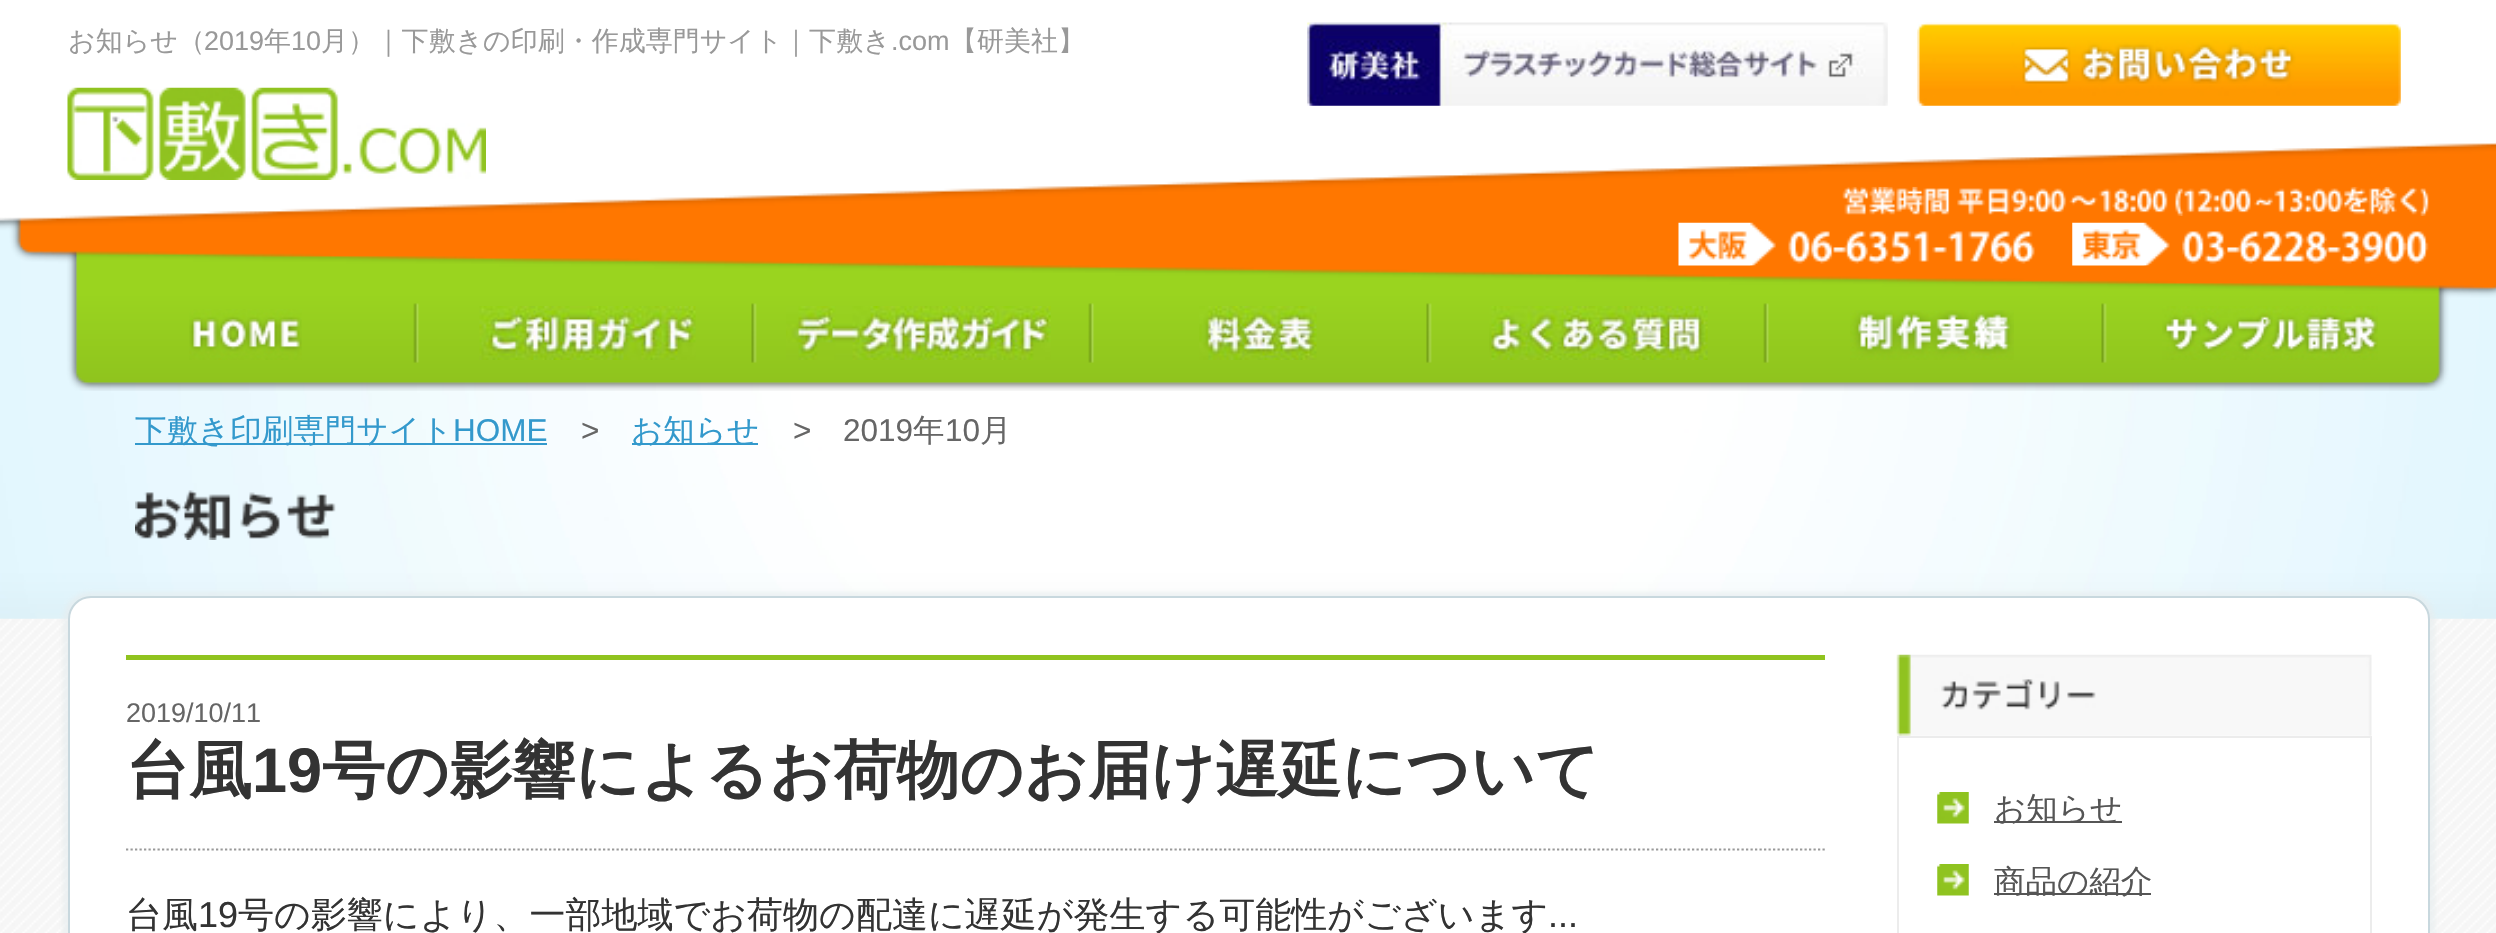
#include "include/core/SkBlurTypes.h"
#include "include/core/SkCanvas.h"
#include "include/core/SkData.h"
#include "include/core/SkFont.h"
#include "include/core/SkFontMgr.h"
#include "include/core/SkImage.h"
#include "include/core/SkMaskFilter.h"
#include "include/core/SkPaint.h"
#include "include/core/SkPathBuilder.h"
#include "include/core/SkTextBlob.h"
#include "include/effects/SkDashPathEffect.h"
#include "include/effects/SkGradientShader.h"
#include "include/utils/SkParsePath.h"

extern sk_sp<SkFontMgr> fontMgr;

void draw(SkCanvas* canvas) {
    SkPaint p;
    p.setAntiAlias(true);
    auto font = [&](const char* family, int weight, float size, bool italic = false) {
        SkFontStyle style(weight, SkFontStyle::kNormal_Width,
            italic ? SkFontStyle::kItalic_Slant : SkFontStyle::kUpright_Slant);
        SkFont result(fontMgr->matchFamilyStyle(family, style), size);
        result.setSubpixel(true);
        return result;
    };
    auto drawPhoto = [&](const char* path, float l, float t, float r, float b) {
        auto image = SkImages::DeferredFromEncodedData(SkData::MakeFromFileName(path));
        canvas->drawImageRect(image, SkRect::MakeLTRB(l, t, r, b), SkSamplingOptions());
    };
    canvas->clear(0xFFFFFFFF);
    drawPhoto("media/1.png", 0, 618, 2496, 933);
    drawPhoto("media/16.png", 0, 217, 2496, 619);
    drawPhoto("media/2.png", 0, 0, 2496, 391);
    auto font1 = font("WenQuanYi Zen Hei", 500, 27);
    p.setColor(0xFF999999);
    canvas->drawString("お知らせ（", 68, 50, font1, p);
    auto font2 = font("Liberation Sans", 400, 27);
    canvas->drawString("2019", 204, 50, font2, p);
    canvas->drawString("年", 264, 50, font1, p);
    canvas->drawString("10", 291, 50, font2, p);
    canvas->drawString("月）｜下敷きの印刷・作成専門サイト｜下敷き", 321, 50, font1, p);
    canvas->drawString(".com", 891, 50, font2, p);
    canvas->drawString("【研美社】", 950, 50, font1, p);
    drawPhoto("media/3.png", 1307, 22, 1888, 106);
    drawPhoto("media/4.png", 1917, 22, 2401, 106);
    drawPhoto("media/5.png", 67, 87, 486, 180);
    drawPhoto("media/6.png", 1842, 186, 2429, 216);
    drawPhoto("media/7.png", 1678, 222, 2035, 266);
    drawPhoto("media/8.png", 2072, 222, 2429, 266);
    drawPhoto("media/9.png", 189, 309, 302, 360);
    drawPhoto("media/10.png", 479, 306, 696, 360);
    drawPhoto("media/11.png", 786, 306, 1051, 360);
    drawPhoto("media/12.png", 1199, 306, 1317, 360);
    drawPhoto("media/13.png", 1489, 306, 1708, 360);
    drawPhoto("media/14.png", 1850, 310, 2014, 360);
    drawPhoto("media/15.png", 2162, 306, 2378, 360);
    p.setColor(0xFF3399CC);
    canvas->drawRect(SkRect::MakeLTRB(135, 443, 547, 445), p);
    auto font3 = font("WenQuanYi Zen Hei", 500, 31.5f);
    canvas->drawString("下敷き印刷専門サイト", 135, 441, font3, p);
    auto font4 = font("Liberation Sans", 400, 31.5f);
    canvas->drawString("HOME", 453, 441, font4, p);
    p.setColor(0xFF666666);
    canvas->drawString(">", 581, 441, font4, p);
    p.setColor(0xFF3399CC);
    canvas->drawRect(SkRect::MakeLTRB(632, 443, 758, 445), p);
    canvas->drawString("お知らせ", 631, 441, font3, p);
    p.setColor(0xFF666666);
    canvas->drawString(">", 793, 441, font4, p);
    canvas->drawString("2019", 843, 441, font4, p);
    canvas->drawString("年", 913, 441, font3, p);
    canvas->drawString("10", 945, 441, font4, p);
    canvas->drawString("月", 980, 441, font3, p);
    drawPhoto("media/17.png", 135, 490, 336, 540);
    p.setColor(0xA6E7ECEE);
    p.setMaskFilter(SkMaskFilter::MakeBlur(kNormal_SkBlurStyle, 2));
    canvas->drawRoundRect(SkRect::MakeLTRB(63, 592, 2435, 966), 27, 27, p);
    p.setMaskFilter(nullptr);
    p.setColor(0xFFFFFFFF);
    canvas->drawRoundRect(SkRect::MakeLTRB(69, 597, 2429, 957), 22, 22, p);
    p.setStyle(SkPaint::kStroke_Style);
    p.setStrokeWidth(2);
    p.setColor(0xFFC8D8DE);
    canvas->drawRoundRect(SkRect::MakeLTRB(69, 597, 2429, 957), 22, 22, p);
    p.setStyle(SkPaint::kFill_Style);
    p.setColor(0xFF90C31F);
    canvas->drawRect(SkRect::MakeLTRB(126, 655, 1825, 660), p);
    p.setColor(0xFF666666);
    canvas->drawString("2019/10/11", 126, 722, font2, p);
    p.setStyle(SkPaint::kStroke_Style);
    p.setStrokeWidth(2.2f);
    p.setColor(0xFF999999);
    p.setPathEffect(SkDashPathEffect::Make({{2.25f, 2.25f}}, 0));
    canvas->drawPath(SkPathBuilder().moveTo(126, 849.5f).lineTo(1825, 849.5f).detach(), p);
    p.setPathEffect(nullptr);
    auto font5 = font("WenQuanYi Zen Hei", 700, 63);
    p.setStyle(SkPaint::kFill_Style);
    p.setColor(0xFF333333);
    canvas->drawString("台風", 126, 792, font5, p);
    auto font6 = font("Liberation Sans", 700, 63);
    canvas->drawString("19", 252, 792, font6, p);
    canvas->drawString("号の影響によるお荷物のお届け遅延について", 322, 792, font5, p);
    auto font7 = font("WenQuanYi Zen Hei", 500, 36);
    canvas->drawString("台風", 126, 927, font7, p);
    auto font8 = font("Liberation Sans", 400, 36);
    canvas->drawString("19", 198, 927, font8, p);
    canvas->drawString("号の影響により、一部地域でお荷物の配達に遅延が発生する可能性がございます", 238, 927, font7, p);
    canvas->drawString("...", 1548, 927, font8, p);
    drawPhoto("media/18.png", 1896, 654, 2372, 736);
    p.setStyle(SkPaint::kStroke_Style);
    p.setStrokeWidth(2);
    p.setColor(0xFFECECEC);
    canvas->drawRect(SkRect::MakeLTRB(1898, 737, 2371, 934), p);
    drawPhoto("media/19.png", 1937, 792, 1969, 824);
    p.setStyle(SkPaint::kFill_Style);
    p.setColor(0xFF555555);
    canvas->drawRect(SkRect::MakeLTRB(1994, 821, 2122, 823), p);
    canvas->drawString("お知らせ", 1994, 819, font3, p);
    drawPhoto("media/19.png", 1937, 864, 1969, 896);
    canvas->drawRect(SkRect::MakeLTRB(1994, 893, 2151, 895), p);
    canvas->drawString("商品の紹介", 1994, 892, font3, p);
}
